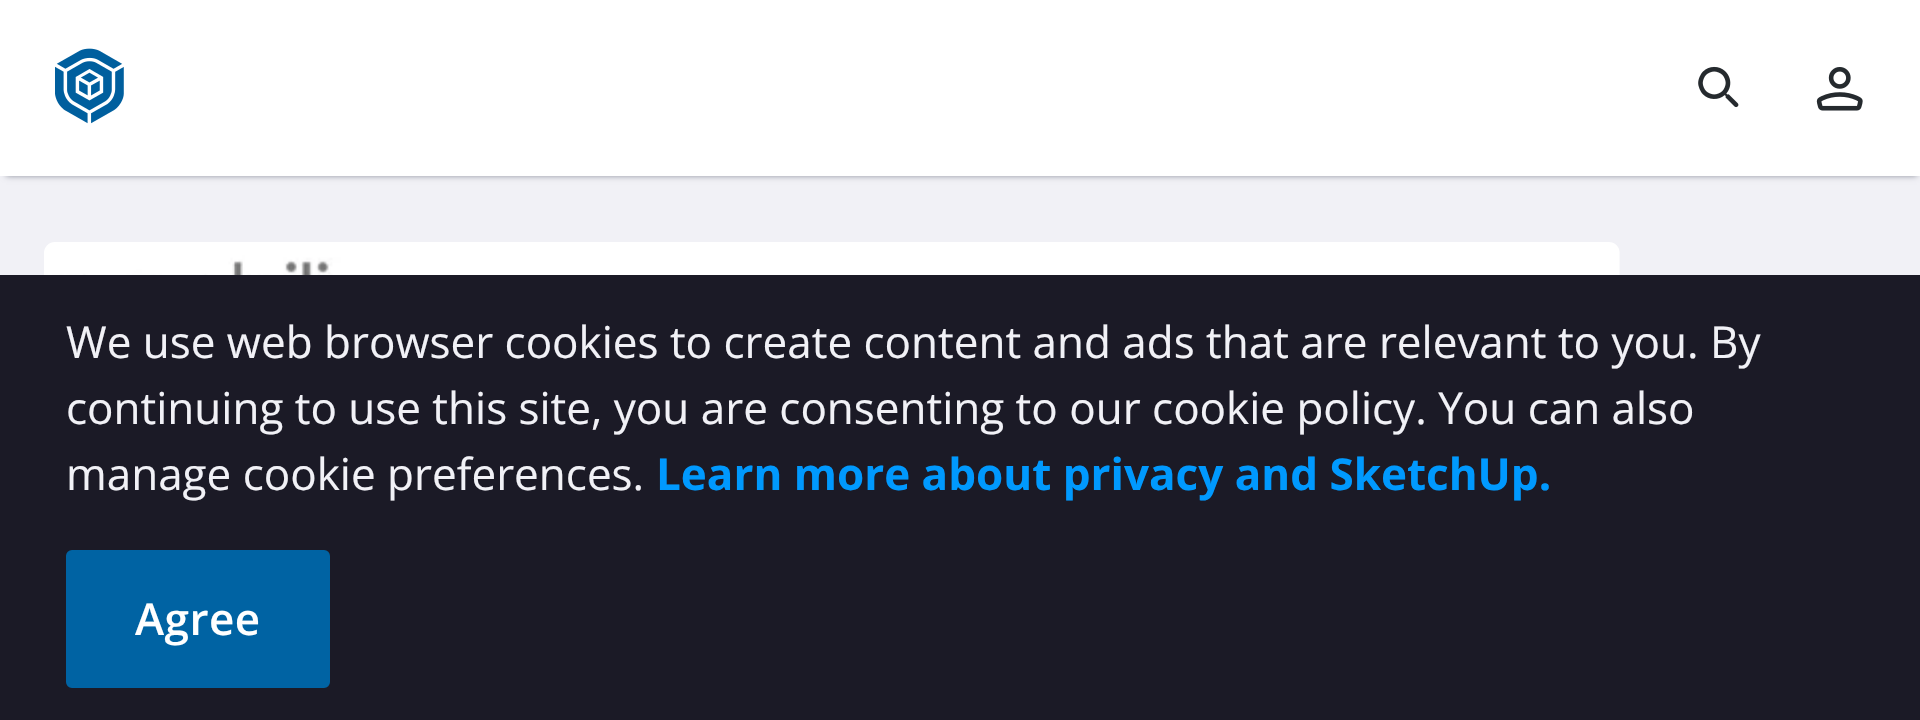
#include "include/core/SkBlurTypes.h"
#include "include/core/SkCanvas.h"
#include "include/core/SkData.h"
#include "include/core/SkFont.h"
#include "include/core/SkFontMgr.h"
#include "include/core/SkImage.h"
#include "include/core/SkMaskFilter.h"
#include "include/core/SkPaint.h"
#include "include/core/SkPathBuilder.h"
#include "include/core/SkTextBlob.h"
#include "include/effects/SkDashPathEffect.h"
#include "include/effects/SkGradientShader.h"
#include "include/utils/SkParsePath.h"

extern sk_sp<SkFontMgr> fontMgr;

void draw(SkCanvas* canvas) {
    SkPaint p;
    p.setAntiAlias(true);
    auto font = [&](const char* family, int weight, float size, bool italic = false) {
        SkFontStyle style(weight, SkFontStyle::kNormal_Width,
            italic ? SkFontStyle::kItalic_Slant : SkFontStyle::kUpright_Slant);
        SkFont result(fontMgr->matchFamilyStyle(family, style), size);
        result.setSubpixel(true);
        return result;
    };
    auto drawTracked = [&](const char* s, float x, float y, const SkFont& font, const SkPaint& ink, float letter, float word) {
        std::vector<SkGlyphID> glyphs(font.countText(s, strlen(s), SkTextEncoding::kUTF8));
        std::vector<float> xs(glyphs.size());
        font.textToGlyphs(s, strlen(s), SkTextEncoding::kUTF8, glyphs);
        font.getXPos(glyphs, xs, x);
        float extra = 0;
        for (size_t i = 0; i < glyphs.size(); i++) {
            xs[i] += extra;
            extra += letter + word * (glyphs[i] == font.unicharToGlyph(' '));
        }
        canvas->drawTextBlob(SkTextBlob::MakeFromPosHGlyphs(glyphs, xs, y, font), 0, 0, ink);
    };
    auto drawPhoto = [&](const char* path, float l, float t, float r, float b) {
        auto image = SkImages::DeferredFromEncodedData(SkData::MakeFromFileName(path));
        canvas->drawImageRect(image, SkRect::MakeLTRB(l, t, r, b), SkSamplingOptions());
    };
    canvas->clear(0xFFF1F1F6);
    p.setColor(0xFF90939F);
    p.setMaskFilter(SkMaskFilter::MakeBlur(kNormal_SkBlurStyle, 3));
    canvas->drawRect(SkRect::MakeLTRB(6, 11, 1917, 176), p);
    p.setMaskFilter(nullptr);
    p.setColor(0xFFFFFFFF);
    canvas->drawRect(SkRect::MakeLTRB(0, 0, 1920, 176), p);
    drawPhoto("media/1.png", 55, 48, 124, 124);
    drawPhoto("media/2.png", 1698, 66, 1739, 108);
    drawPhoto("media/3.png", 1816, 67, 1863, 111);
    drawPhoto("media/4.png", 44, 242, 1620, 275);
    p.setColor(0xFF1B1A26);
    canvas->drawRect(SkRect::MakeLTRB(0, 275, 1920, 720), p);
    auto font1 = font("Open Sans", 400, 44);
    p.setColor(0xFFF1F1F6);
    {
        const struct { const char* s; float x, y; } items[] = {
            {"We use web browser cookies to create content and ads that are relevant to you. By", 66, 358},
            {"continuing to use this site, you are consenting to our cookie policy. You can also", 66, 424},
            {"manage cookie preferences.", 66, 490},
        };
        for (auto [s, x, y] : items) {
            canvas->drawString(s, x, y, font1, p);
        }
    }
    auto font2 = font("Open Sans", 700, 44);
    p.setColor(0xFF0099FE);
    canvas->drawString("Learn more about privacy and SketchUp.", 656, 490, font2, p);
    p.setColor(0xFF0063A3);
    canvas->drawRoundRect(SkRect::MakeLTRB(67.5f, 551.5f, 328.5f, 686.5f), 4.5f, 4.5f, p);
    p.setStyle(SkPaint::kStroke_Style);
    p.setStrokeWidth(3);
    canvas->drawRoundRect(SkRect::MakeLTRB(67.5f, 551.5f, 328.5f, 686.5f), 4.5f, 4.5f, p);
    auto font3 = font("Open Sans", 600, 44);
    p.setStyle(SkPaint::kFill_Style);
    p.setColor(0xFFFFFFFF);
    drawTracked("Agree", 135, 635, font3, p, 0.5f, 0);
}
